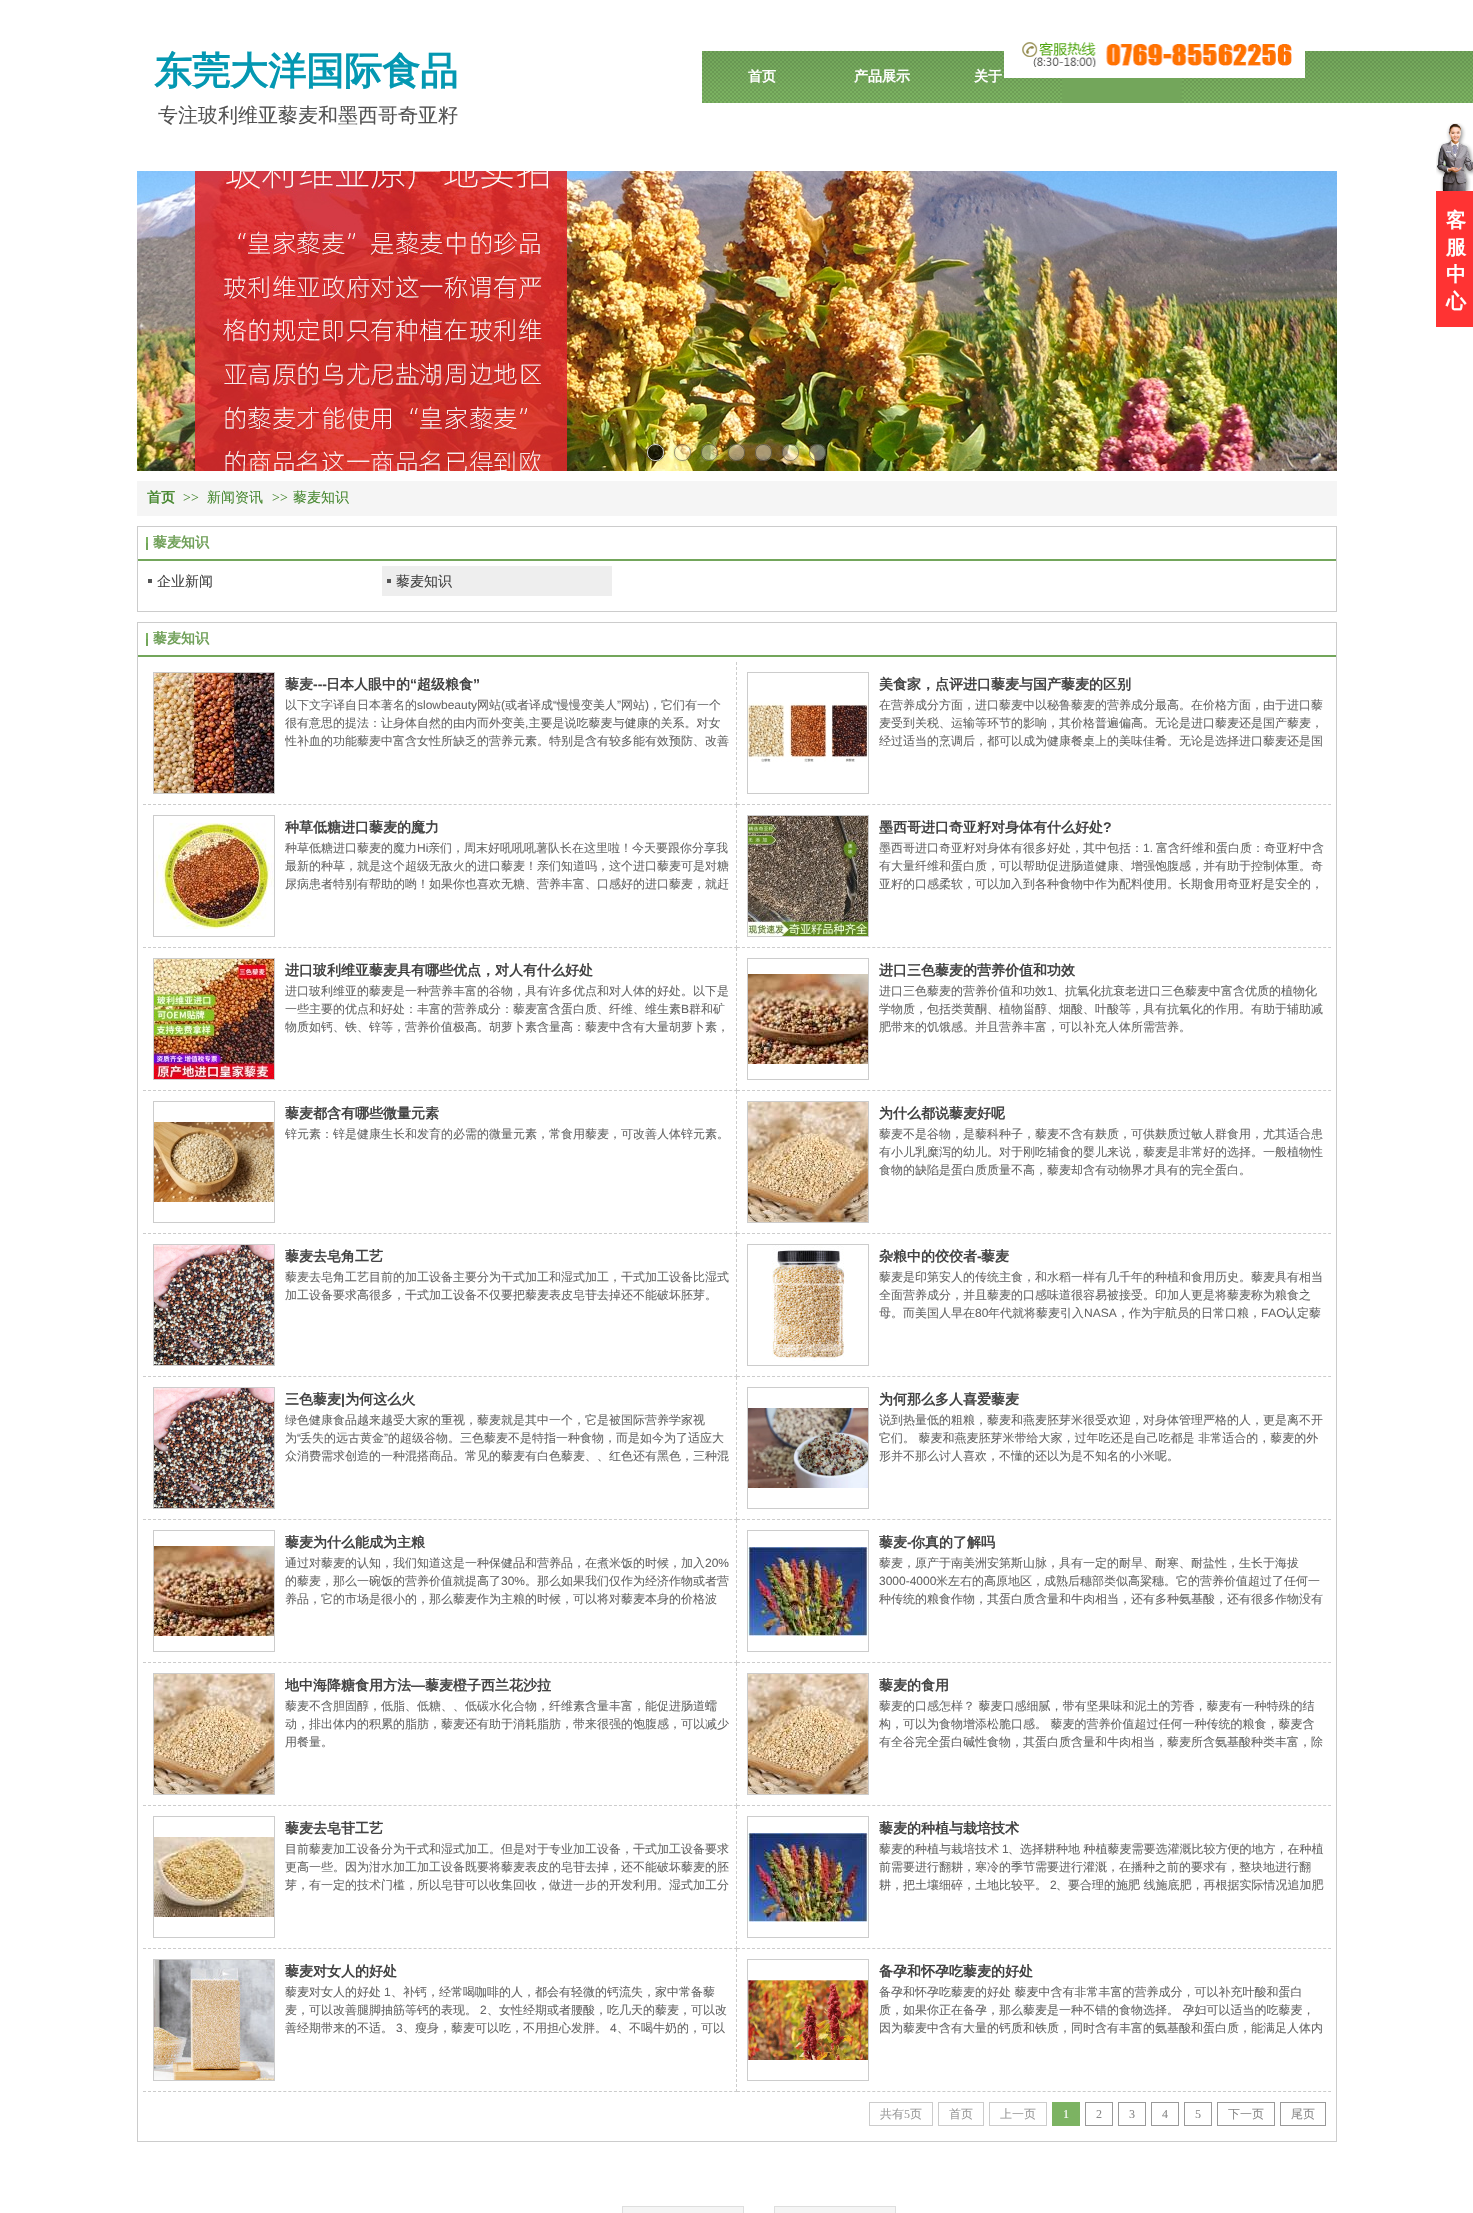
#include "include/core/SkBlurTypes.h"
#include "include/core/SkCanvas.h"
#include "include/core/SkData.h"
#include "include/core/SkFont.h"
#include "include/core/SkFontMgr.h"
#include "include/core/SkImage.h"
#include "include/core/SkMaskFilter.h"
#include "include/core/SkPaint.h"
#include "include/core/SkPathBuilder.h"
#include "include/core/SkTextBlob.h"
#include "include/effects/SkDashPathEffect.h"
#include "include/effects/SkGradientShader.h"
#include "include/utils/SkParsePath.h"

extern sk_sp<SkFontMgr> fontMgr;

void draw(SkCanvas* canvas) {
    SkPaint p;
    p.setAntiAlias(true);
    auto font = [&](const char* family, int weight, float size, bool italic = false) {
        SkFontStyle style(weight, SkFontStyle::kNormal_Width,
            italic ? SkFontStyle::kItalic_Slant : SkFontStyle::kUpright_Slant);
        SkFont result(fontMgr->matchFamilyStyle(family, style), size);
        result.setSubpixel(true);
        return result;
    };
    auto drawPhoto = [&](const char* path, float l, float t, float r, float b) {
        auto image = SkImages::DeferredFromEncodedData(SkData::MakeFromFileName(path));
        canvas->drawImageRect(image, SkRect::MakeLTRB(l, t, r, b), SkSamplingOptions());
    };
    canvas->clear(0xFFFFFFFF);
    auto font1 = font("WenQuanYi Zen Hei", 700, 38);
    p.setColor(0xFF0498B2);
    canvas->drawString("东莞大洋国际食品", 154, 84, font1, p);
    drawPhoto("media/2.png", 702, 51, 1473, 103);
    drawPhoto("media/1.png", 1004, 42, 1305, 78);
    auto font2 = font("WenQuanYi Zen Hei", 500, 20);
    p.setColor(0xFF535353);
    canvas->drawString("专注玻利维亚藜麦和墨西哥奇亚籽", 158, 122, font2, p);
    auto font3 = font("WenQuanYi Zen Hei", 700, 14);
    p.setColor(0xFFFFFFFF);
    {
        const struct { const char* s; float x, y; } items[] = {
            {"首页", 748, 81},
            {"产品展示", 854, 81},
            {"关于", 974, 81},
        };
        for (auto [s, x, y] : items) {
            canvas->drawString(s, x, y, font3, p);
        }
    }
    p.setColor(0xFF73A65B);
    canvas->drawRect(SkRect::MakeLTRB(1062, 78, 1182, 103), p);
    drawPhoto("media/3.png", 137, 171, 1337, 471);
    canvas->save();
    canvas->clipPath(SkPathBuilder(SkPathFillType::kEvenOdd).moveTo(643, 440).lineTo(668, 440).lineTo(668, 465).lineTo(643, 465).close().moveTo(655, 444).lineTo(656, 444).cubicTo(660.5f, 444, 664, 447.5f, 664, 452).lineTo(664, 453).cubicTo(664, 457.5f, 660.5f, 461, 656, 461).lineTo(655, 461).cubicTo(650.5f, 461, 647, 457.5f, 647, 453).lineTo(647, 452).cubicTo(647, 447.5f, 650.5f, 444, 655, 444).close().detach(), true);
    p.setColor(0x7A000000);
    p.setMaskFilter(SkMaskFilter::MakeBlur(kNormal_SkBlurStyle, 1));
    canvas->drawRoundRect(SkRect::MakeLTRB(647, 444, 664, 461), 8, 8, p);
    p.setMaskFilter(nullptr);
    canvas->restore();
    p.setColor(0xCC000000);
    canvas->drawRoundRect(SkRect::MakeLTRB(647, 444, 664, 461), 8, 8, p);
    p.setStyle(SkPaint::kStroke_Style);
    p.setStrokeWidth(1);
    p.setColor(0xCCFFFFFF);
    canvas->drawRoundRect(SkRect::MakeLTRB(647.5f, 444.5f, 663.5f, 460.5f), 7.5f, 7.5f, p);
    canvas->save();
    canvas->clipPath(SkPathBuilder(SkPathFillType::kEvenOdd).moveTo(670, 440).lineTo(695, 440).lineTo(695, 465).lineTo(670, 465).close().moveTo(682, 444).lineTo(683, 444).cubicTo(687.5f, 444, 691, 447.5f, 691, 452).lineTo(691, 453).cubicTo(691, 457.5f, 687.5f, 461, 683, 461).lineTo(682, 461).cubicTo(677.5f, 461, 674, 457.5f, 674, 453).lineTo(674, 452).cubicTo(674, 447.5f, 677.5f, 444, 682, 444).close().detach(), true);
    p.setStyle(SkPaint::kFill_Style);
    p.setColor(0x3D000000);
    p.setMaskFilter(SkMaskFilter::MakeBlur(kNormal_SkBlurStyle, 1));
    canvas->drawRoundRect(SkRect::MakeLTRB(674, 444, 691, 461), 8, 8, p);
    p.setMaskFilter(nullptr);
    canvas->restore();
    p.setColor(0x66FFFFFF);
    canvas->drawRoundRect(SkRect::MakeLTRB(674, 444, 691, 461), 8, 8, p);
    p.setStyle(SkPaint::kStroke_Style);
    p.setColor(0x66000000);
    canvas->drawRoundRect(SkRect::MakeLTRB(674.5f, 444.5f, 690.5f, 460.5f), 7.5f, 7.5f, p);
    canvas->save();
    canvas->clipPath(SkPathBuilder(SkPathFillType::kEvenOdd).moveTo(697, 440).lineTo(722, 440).lineTo(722, 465).lineTo(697, 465).close().moveTo(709, 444).lineTo(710, 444).cubicTo(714.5f, 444, 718, 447.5f, 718, 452).lineTo(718, 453).cubicTo(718, 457.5f, 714.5f, 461, 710, 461).lineTo(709, 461).cubicTo(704.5f, 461, 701, 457.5f, 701, 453).lineTo(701, 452).cubicTo(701, 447.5f, 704.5f, 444, 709, 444).close().detach(), true);
    p.setStyle(SkPaint::kFill_Style);
    p.setColor(0x3D000000);
    p.setMaskFilter(SkMaskFilter::MakeBlur(kNormal_SkBlurStyle, 1));
    canvas->drawRoundRect(SkRect::MakeLTRB(701, 444, 718, 461), 8, 8, p);
    p.setMaskFilter(nullptr);
    canvas->restore();
    p.setColor(0x66FFFFFF);
    canvas->drawRoundRect(SkRect::MakeLTRB(701, 444, 718, 461), 8, 8, p);
    p.setStyle(SkPaint::kStroke_Style);
    p.setColor(0x66000000);
    canvas->drawRoundRect(SkRect::MakeLTRB(701.5f, 444.5f, 717.5f, 460.5f), 7.5f, 7.5f, p);
    canvas->save();
    canvas->clipPath(SkPathBuilder(SkPathFillType::kEvenOdd).moveTo(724, 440).lineTo(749, 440).lineTo(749, 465).lineTo(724, 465).close().moveTo(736, 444).lineTo(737, 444).cubicTo(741.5f, 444, 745, 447.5f, 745, 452).lineTo(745, 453).cubicTo(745, 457.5f, 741.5f, 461, 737, 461).lineTo(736, 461).cubicTo(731.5f, 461, 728, 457.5f, 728, 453).lineTo(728, 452).cubicTo(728, 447.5f, 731.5f, 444, 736, 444).close().detach(), true);
    p.setStyle(SkPaint::kFill_Style);
    p.setColor(0x3D000000);
    p.setMaskFilter(SkMaskFilter::MakeBlur(kNormal_SkBlurStyle, 1));
    canvas->drawRoundRect(SkRect::MakeLTRB(728, 444, 745, 461), 8, 8, p);
    p.setMaskFilter(nullptr);
    canvas->restore();
    p.setColor(0x66FFFFFF);
    canvas->drawRoundRect(SkRect::MakeLTRB(728, 444, 745, 461), 8, 8, p);
    p.setStyle(SkPaint::kStroke_Style);
    p.setColor(0x66000000);
    canvas->drawRoundRect(SkRect::MakeLTRB(728.5f, 444.5f, 744.5f, 460.5f), 7.5f, 7.5f, p);
    p.setStyle(SkPaint::kFill_Style);
    p.setColor(0x66FFFFFF);
    canvas->drawRoundRect(SkRect::MakeLTRB(755, 444, 772, 461), 8, 8, p);
    p.setStyle(SkPaint::kStroke_Style);
    p.setColor(0x66000000);
    canvas->drawRoundRect(SkRect::MakeLTRB(755.5f, 444.5f, 771.5f, 460.5f), 7.5f, 7.5f, p);
    canvas->save();
    canvas->clipPath(SkPathBuilder(SkPathFillType::kEvenOdd).moveTo(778, 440).lineTo(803, 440).lineTo(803, 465).lineTo(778, 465).close().moveTo(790, 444).lineTo(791, 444).cubicTo(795.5f, 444, 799, 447.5f, 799, 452).lineTo(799, 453).cubicTo(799, 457.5f, 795.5f, 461, 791, 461).lineTo(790, 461).cubicTo(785.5f, 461, 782, 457.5f, 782, 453).lineTo(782, 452).cubicTo(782, 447.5f, 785.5f, 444, 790, 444).close().detach(), true);
    p.setStyle(SkPaint::kFill_Style);
    p.setColor(0x3D000000);
    p.setMaskFilter(SkMaskFilter::MakeBlur(kNormal_SkBlurStyle, 1));
    canvas->drawRoundRect(SkRect::MakeLTRB(782, 444, 799, 461), 8, 8, p);
    p.setMaskFilter(nullptr);
    canvas->restore();
    p.setColor(0x66FFFFFF);
    canvas->drawRoundRect(SkRect::MakeLTRB(782, 444, 799, 461), 8, 8, p);
    p.setStyle(SkPaint::kStroke_Style);
    p.setColor(0x66000000);
    canvas->drawRoundRect(SkRect::MakeLTRB(782.5f, 444.5f, 798.5f, 460.5f), 7.5f, 7.5f, p);
    canvas->save();
    canvas->clipPath(SkPathBuilder(SkPathFillType::kEvenOdd).moveTo(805, 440).lineTo(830, 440).lineTo(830, 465).lineTo(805, 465).close().moveTo(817, 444).lineTo(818, 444).cubicTo(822.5f, 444, 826, 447.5f, 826, 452).lineTo(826, 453).cubicTo(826, 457.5f, 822.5f, 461, 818, 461).lineTo(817, 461).cubicTo(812.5f, 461, 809, 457.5f, 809, 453).lineTo(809, 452).cubicTo(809, 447.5f, 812.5f, 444, 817, 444).close().detach(), true);
    p.setStyle(SkPaint::kFill_Style);
    p.setColor(0x3D000000);
    p.setMaskFilter(SkMaskFilter::MakeBlur(kNormal_SkBlurStyle, 1));
    canvas->drawRoundRect(SkRect::MakeLTRB(809, 444, 826, 461), 8, 8, p);
    p.setMaskFilter(nullptr);
    canvas->restore();
    p.setColor(0x66FFFFFF);
    canvas->drawRoundRect(SkRect::MakeLTRB(809, 444, 826, 461), 8, 8, p);
    p.setStyle(SkPaint::kStroke_Style);
    p.setColor(0x66000000);
    canvas->drawRoundRect(SkRect::MakeLTRB(809.5f, 444.5f, 825.5f, 460.5f), 7.5f, 7.5f, p);
    drawPhoto("media/4.png", 1436, 123, 1473, 191);
    p.setStyle(SkPaint::kFill_Style);
    p.setColor(0xFFFF3333);
    canvas->drawRect(SkRect::MakeLTRB(1436, 191, 1473, 327), p);
    auto font4 = font("WenQuanYi Zen Hei", 700, 20);
    p.setColor(0xFFFFFFFF);
    {
        const struct { const char* s; float x, y; } items[] = {
            {"客", 1446, 227},
            {"服", 1446, 254},
            {"中", 1446, 281},
            {"心", 1446, 308},
        };
        for (auto [s, x, y] : items) {
            canvas->drawString(s, x, y, font4, p);
        }
    }
    p.setColor(0xFFF5F5F5);
    canvas->drawRect(SkRect::MakeLTRB(137, 481, 1337, 516), p);
    p.setColor(0xFF498932);
    canvas->drawString("首页", 147, 502, font3, p);
    auto font5 = font("Liberation Serif", 400, 14);
    canvas->drawString(">>", 183, 502, font5, p);
    auto font6 = font("WenQuanYi Zen Hei", 500, 14);
    canvas->drawString("新闻资讯", 207, 502, font6, p);
    canvas->drawString(">>", 272, 502, font5, p);
    canvas->drawString("藜麦知识", 293, 502, font6, p);
    p.setStyle(SkPaint::kStroke_Style);
    p.setColor(0xFFCCCCCC);
    canvas->drawRect(SkRect::MakeLTRB(137.5f, 526.5f, 1336.5f, 611.5f), p);
    drawPhoto("media/5.png", 146, 537, 148, 550);
    p.setStyle(SkPaint::kFill_Style);
    p.setColor(0xFF6FA058);
    canvas->drawString("藜麦知识", 153, 547, font3, p);
    p.setColor(0xFF73A65B);
    canvas->drawRect(SkRect::MakeLTRB(138, 559, 1336, 561), p);
    p.setColor(0xFF555555);
    canvas->drawRect(SkRect::MakeLTRB(148, 579, 152, 583), p);
    p.setColor(0xFF434343);
    canvas->drawString("企业新闻", 157, 586, font6, p);
    p.setColor(0xFFEEEEEE);
    canvas->drawRect(SkRect::MakeLTRB(382, 566, 612, 596), p);
    p.setColor(0xFF555555);
    canvas->drawRect(SkRect::MakeLTRB(387, 579, 391, 583), p);
    p.setColor(0xFF434343);
    canvas->drawString("藜麦知识", 396, 586, font6, p);
    p.setStyle(SkPaint::kStroke_Style);
    p.setColor(0xFFCCCCCC);
    canvas->drawRect(SkRect::MakeLTRB(137.5f, 622.5f, 1336.5f, 2141.5f), p);
    drawPhoto("media/5.png", 146, 633, 148, 646);
    p.setStyle(SkPaint::kFill_Style);
    p.setColor(0xFF6FA058);
    canvas->drawString("藜麦知识", 153, 643, font3, p);
    p.setColor(0xFF73A65B);
    canvas->drawRect(SkRect::MakeLTRB(138, 655, 1336, 657), p);
    p.setStyle(SkPaint::kStroke_Style);
    p.setColor(0xFFCCCCCC);
    p.setPathEffect(SkDashPathEffect::Make({{3, 2}}, 0));
    canvas->drawPath(SkPathBuilder().moveTo(736.5f, 662).lineTo(736.5f, 805).detach(), p);
    p.setPathEffect(nullptr);
    p.setPathEffect(SkDashPathEffect::Make({{3, 2.01f}}, 0));
    canvas->drawPath(SkPathBuilder().moveTo(143, 804.5f).lineTo(737, 804.5f).detach(), p);
    p.setPathEffect(nullptr);
    canvas->drawRect(SkRect::MakeLTRB(153.5f, 672.5f, 274.5f, 793.5f), p);
    drawPhoto("media/6.png", 154, 673, 274, 793);
    p.setStyle(SkPaint::kFill_Style);
    p.setColor(0xFF434343);
    canvas->drawString("藜麦", 285, 689, font3, p);
    canvas->drawString("日本人眼中的", 326, 689, font3, p);
    auto font7 = font("Liberation Sans", 700, 14);
    canvas->drawString("“", 410, 689, font7, p);
    canvas->drawString("超级粮食", 417, 689, font3, p);
    canvas->drawString("”", 473, 689, font7, p);
    canvas->drawString("---", 313, 689, font7, p);
    auto font8 = font("WenQuanYi Zen Hei", 500, 12);
    p.setColor(0xFF666666);
    canvas->drawString("以下文字译自日本著名的", 285, 709, font8, p);
    auto font9 = font("Liberation Sans", 400, 12);
    canvas->drawString("slowbeauty", 417, 709, font9, p);
    canvas->drawString("网站", 477, 709, font8, p);
    canvas->drawString("(", 501, 709, font9, p);
    canvas->drawString("或者译成", 505, 709, font8, p);
    canvas->drawString("“", 553, 709, font9, p);
    canvas->drawString("慢慢变美人", 557, 709, font8, p);
    canvas->drawString("”", 617, 709, font9, p);
    canvas->drawString("网站", 621, 709, font8, p);
    canvas->drawString(")", 645, 709, font9, p);
    canvas->drawString("，它们有一个", 649, 709, font8, p);
    canvas->drawString("很有意思的提法：让身体自然的由内而外变美 主要是说吃藜麦与健康的关系。对女", 285, 727, font8, p);
    canvas->drawString(",", 525, 727, font9, p);
    canvas->save();
    canvas->clipRect(SkRect::MakeLTRB(285, 696, 736, 751));
    canvas->drawString("性补血的功能藜麦中富含女性所缺乏的营养元素。特别是含有较多能有效预防、改善", 285, 745, font8, p);
    canvas->restore();
    p.setStyle(SkPaint::kStroke_Style);
    p.setColor(0xFFCCCCCC);
    p.setPathEffect(SkDashPathEffect::Make({{3, 2.01f}}, 0));
    canvas->drawPath(SkPathBuilder().moveTo(737, 804.5f).lineTo(1331, 804.5f).detach(), p);
    p.setPathEffect(nullptr);
    canvas->drawRect(SkRect::MakeLTRB(747.5f, 672.5f, 868.5f, 793.5f), p);
    drawPhoto("media/7.png", 748, 703, 868, 762);
    p.setStyle(SkPaint::kFill_Style);
    p.setColor(0xFF434343);
    canvas->drawString("美食家，点评进口藜麦与国产藜麦的区别", 879, 689, font3, p);
    p.setColor(0xFF666666);
    canvas->drawString("在营养成分方面，进口藜麦中以秘鲁藜麦的营养成分最高。在价格方面，由于进口藜", 879, 709, font8, p);
    canvas->drawString("麦受到关税、运输等环节的影响，其价格普遍偏高。无论是进口藜麦还是国产藜麦，", 879, 727, font8, p);
    canvas->save();
    canvas->clipRect(SkRect::MakeLTRB(879, 696, 1331, 751));
    canvas->drawString("经过适当的烹调后，都可以成为健康餐桌上的美味佳肴。无论是选择进口藜麦还是国", 879, 745, font8, p);
    canvas->restore();
    p.setStyle(SkPaint::kStroke_Style);
    p.setColor(0xFFCCCCCC);
    p.setPathEffect(SkDashPathEffect::Make({{3, 2}}, 0));
    canvas->drawPath(SkPathBuilder().moveTo(736.5f, 805).lineTo(736.5f, 948).detach(), p);
    p.setPathEffect(nullptr);
    p.setPathEffect(SkDashPathEffect::Make({{3, 2.01f}}, 0));
    canvas->drawPath(SkPathBuilder().moveTo(143, 947.5f).lineTo(737, 947.5f).detach(), p);
    p.setPathEffect(nullptr);
    canvas->drawRect(SkRect::MakeLTRB(153.5f, 815.5f, 274.5f, 936.5f), p);
    drawPhoto("media/8.png", 154, 823, 274, 929);
    p.setStyle(SkPaint::kFill_Style);
    p.setColor(0xFF434343);
    canvas->drawString("种草低糖进口藜麦的魔力", 285, 832, font3, p);
    p.setColor(0xFF666666);
    canvas->drawString("种草低糖进口藜麦的魔力", 285, 852, font8, p);
    canvas->drawString("Hi", 417, 852, font9, p);
    {
        const struct { const char* s; float x, y; } items[] = {
            {"亲们，周末好吼吼吼薯队长在这里啦！今天要跟你分享我", 428, 852},
            {"最新的种草，就是这个超级无敌火的进口藜麦！亲们知道吗，这个进口藜麦可是对糖", 285, 870},
            {"尿病患者特别有帮助的哟！如果你也喜欢无糖、营养丰富、口感好的进口藜麦，就赶", 285, 888},
        };
        for (auto [s, x, y] : items) {
            canvas->drawString(s, x, y, font8, p);
        }
    }
    p.setStyle(SkPaint::kStroke_Style);
    p.setColor(0xFFCCCCCC);
    p.setPathEffect(SkDashPathEffect::Make({{3, 2.01f}}, 0));
    canvas->drawPath(SkPathBuilder().moveTo(737, 947.5f).lineTo(1331, 947.5f).detach(), p);
    p.setPathEffect(nullptr);
    canvas->drawRect(SkRect::MakeLTRB(747.5f, 815.5f, 868.5f, 936.5f), p);
    drawPhoto("media/9.png", 748, 816, 868, 936);
    p.setStyle(SkPaint::kFill_Style);
    p.setColor(0xFF434343);
    canvas->drawString("墨西哥进口奇亚籽对身体有什么好处", 879, 832, font3, p);
    canvas->drawString("?", 1103, 832, font7, p);
    p.setColor(0xFF666666);
    canvas->drawString("墨西哥进口奇亚籽对身体有很多好处，其中包括：", 879, 852, font8, p);
    canvas->drawString("1.", 1143, 852, font9, p);
    {
        const struct { const char* s; float x, y; } items[] = {
            {"富含纤维和蛋白质：奇亚籽中含", 1156, 852},
            {"有大量纤维和蛋白质，可以帮助促进肠道健康、增强饱腹感，并有助于控制体重。奇", 879, 870},
            {"亚籽的口感柔软，可以加入到各种食物中作为配料使用。长期食用奇亚籽是安全的，", 879, 888},
        };
        for (auto [s, x, y] : items) {
            canvas->drawString(s, x, y, font8, p);
        }
    }
    p.setStyle(SkPaint::kStroke_Style);
    p.setColor(0xFFCCCCCC);
    p.setPathEffect(SkDashPathEffect::Make({{3, 2}}, 0));
    canvas->drawPath(SkPathBuilder().moveTo(736.5f, 948).lineTo(736.5f, 1091).detach(), p);
    p.setPathEffect(nullptr);
    p.setPathEffect(SkDashPathEffect::Make({{3, 2.01f}}, 0));
    canvas->drawPath(SkPathBuilder().moveTo(143, 1090.5f).lineTo(737, 1090.5f).detach(), p);
    p.setPathEffect(nullptr);
    canvas->drawRect(SkRect::MakeLTRB(153.5f, 958.5f, 274.5f, 1079.5f), p);
    drawPhoto("media/10.png", 154, 959, 274, 1079);
    p.setStyle(SkPaint::kFill_Style);
    p.setColor(0xFF434343);
    canvas->drawString("进口玻利维亚藜麦具有哪些优点，对人有什么好处", 285, 975, font3, p);
    canvas->save();
    canvas->clipRect(SkRect::MakeLTRB(285, 982, 736, 1037));
    p.setColor(0xFF666666);
    canvas->drawString("进口玻利维亚的藜麦是一种营养丰富的谷物，具有许多优点和对人体的好处。以下是", 285, 995, font8, p);
    canvas->restore();
    canvas->drawString("一些主要的优点和好处：丰富的营养成分：藜麦富含蛋白质、纤维、维生素", 285, 1013, font8, p);
    canvas->drawString("B", 681, 1013, font9, p);
    canvas->drawString("群和矿", 689, 1013, font8, p);
    canvas->save();
    canvas->clipRect(SkRect::MakeLTRB(285, 982, 736, 1037));
    canvas->drawString("物质如钙、铁、锌等，营养价值极高。胡萝卜素含量高：藜麦中含有大量胡萝卜素，", 285, 1031, font8, p);
    canvas->restore();
    p.setStyle(SkPaint::kStroke_Style);
    p.setColor(0xFFCCCCCC);
    p.setPathEffect(SkDashPathEffect::Make({{3, 2.01f}}, 0));
    canvas->drawPath(SkPathBuilder().moveTo(737, 1090.5f).lineTo(1331, 1090.5f).detach(), p);
    p.setPathEffect(nullptr);
    canvas->drawRect(SkRect::MakeLTRB(747.5f, 958.5f, 868.5f, 1079.5f), p);
    drawPhoto("media/11.png", 748, 974, 868, 1064);
    p.setStyle(SkPaint::kFill_Style);
    p.setColor(0xFF434343);
    canvas->drawString("进口三色藜麦的营养价值和功效", 879, 975, font3, p);
    canvas->save();
    canvas->clipRect(SkRect::MakeLTRB(879, 982, 1331, 1037));
    p.setColor(0xFF666666);
    canvas->drawString("进口三色藜麦的营养价值和功效", 879, 995, font8, p);
    canvas->restore();
    canvas->drawString("1", 1047, 995, font9, p);
    {
        const struct { const char* s; float x, y; } items[] = {
            {"、抗氧化抗衰老进口三色藜麦中富含优质的植物化", 1053, 995},
            {"学物质，包括类黄酮、植物甾醇、烟酸、叶酸等，具有抗氧化的作用。有助于辅助减", 879, 1013},
            {"肥带来的饥饿感。并且营养丰富，可以补充人体所需营养。", 879, 1031},
        };
        for (auto [s, x, y] : items) {
            canvas->drawString(s, x, y, font8, p);
        }
    }
    p.setStyle(SkPaint::kStroke_Style);
    p.setColor(0xFFCCCCCC);
    p.setPathEffect(SkDashPathEffect::Make({{3, 2}}, 0));
    canvas->drawPath(SkPathBuilder().moveTo(736.5f, 1091).lineTo(736.5f, 1234).detach(), p);
    p.setPathEffect(nullptr);
    p.setPathEffect(SkDashPathEffect::Make({{3, 2.01f}}, 0));
    canvas->drawPath(SkPathBuilder().moveTo(143, 1233.5f).lineTo(737, 1233.5f).detach(), p);
    p.setPathEffect(nullptr);
    canvas->drawRect(SkRect::MakeLTRB(153.5f, 1101.5f, 274.5f, 1222.5f), p);
    drawPhoto("media/12.png", 154, 1122, 274, 1202);
    p.setStyle(SkPaint::kFill_Style);
    p.setColor(0xFF434343);
    canvas->drawString("藜麦都含有哪些微量元素", 285, 1118, font3, p);
    p.setColor(0xFF666666);
    canvas->drawString("锌元素：锌是健康生长和发育的必需的微量元素，常食用藜麦，可改善人体锌元素。", 285, 1138, font8, p);
    p.setStyle(SkPaint::kStroke_Style);
    p.setColor(0xFFCCCCCC);
    p.setPathEffect(SkDashPathEffect::Make({{3, 2.01f}}, 0));
    canvas->drawPath(SkPathBuilder().moveTo(737, 1233.5f).lineTo(1331, 1233.5f).detach(), p);
    p.setPathEffect(nullptr);
    canvas->drawRect(SkRect::MakeLTRB(747.5f, 1101.5f, 868.5f, 1222.5f), p);
    drawPhoto("media/13.png", 748, 1102, 868, 1222);
    p.setStyle(SkPaint::kFill_Style);
    p.setColor(0xFF434343);
    canvas->drawString("为什么都说藜麦好呢", 879, 1118, font3, p);
    p.setColor(0xFF666666);
    {
        const struct { const char* s; float x, y; } items[] = {
            {"藜麦不是谷物，是藜科种子，藜麦不含有麸质，可供麸质过敏人群食用，尤其适合患", 879, 1138},
            {"有小儿乳糜泻的幼儿。对于刚吃辅食的婴儿来说，藜麦是非常好的选择。一般植物性", 879, 1156},
            {"食物的缺陷是蛋白质质量不高，藜麦却含有动物界才具有的完全蛋白。", 879, 1174},
        };
        for (auto [s, x, y] : items) {
            canvas->drawString(s, x, y, font8, p);
        }
    }
    p.setStyle(SkPaint::kStroke_Style);
    p.setColor(0xFFCCCCCC);
    p.setPathEffect(SkDashPathEffect::Make({{3, 2}}, 0));
    canvas->drawPath(SkPathBuilder().moveTo(736.5f, 1234).lineTo(736.5f, 1377).detach(), p);
    p.setPathEffect(nullptr);
    p.setPathEffect(SkDashPathEffect::Make({{3, 2.01f}}, 0));
    canvas->drawPath(SkPathBuilder().moveTo(143, 1376.5f).lineTo(737, 1376.5f).detach(), p);
    p.setPathEffect(nullptr);
    canvas->drawRect(SkRect::MakeLTRB(153.5f, 1244.5f, 274.5f, 1365.5f), p);
    drawPhoto("media/14.png", 154, 1245, 274, 1365);
    p.setStyle(SkPaint::kFill_Style);
    p.setColor(0xFF434343);
    canvas->drawString("藜麦去皂角工艺", 285, 1261, font3, p);
    p.setColor(0xFF666666);
    canvas->drawString("藜麦去皂角工艺目前的加工设备主要分为干式加工和湿式加工，干式加工设备比湿式", 285, 1281, font8, p);
    canvas->drawString("加工设备要求高很多，干式加工设备不仅要把藜麦表皮皂苷去掉还不能破坏胚芽。", 285, 1299, font8, p);
    p.setStyle(SkPaint::kStroke_Style);
    p.setColor(0xFFCCCCCC);
    p.setPathEffect(SkDashPathEffect::Make({{3, 2.01f}}, 0));
    canvas->drawPath(SkPathBuilder().moveTo(737, 1376.5f).lineTo(1331, 1376.5f).detach(), p);
    p.setPathEffect(nullptr);
    canvas->drawRect(SkRect::MakeLTRB(747.5f, 1244.5f, 868.5f, 1365.5f), p);
    drawPhoto("media/15.png", 772, 1245, 845, 1361);
    p.setStyle(SkPaint::kFill_Style);
    p.setColor(0xFF434343);
    canvas->drawString("杂粮中的佼佼者", 879, 1261, font3, p);
    canvas->drawString("-", 977, 1261, font7, p);
    canvas->drawString("藜麦", 981, 1261, font3, p);
    p.setColor(0xFF666666);
    {
        const struct { const char* s; float x, y; } items[] = {
            {"藜麦是印第安人的传统主食，和水稻一样有几千年的种植和食用历史。藜麦具有相当", 879, 1281},
            {"全面营养成分，并且藜麦的口感味道很容易被接受。印加人更是将藜麦称为粮食之", 879, 1299},
            {"母。而美国人早在", 879, 1317},
        };
        for (auto [s, x, y] : items) {
            canvas->drawString(s, x, y, font8, p);
        }
    }
    canvas->drawString("80", 975, 1317, font9, p);
    canvas->drawString("年代就将藜麦引入", 988, 1317, font8, p);
    canvas->drawString("NASA", 1084, 1317, font9, p);
    canvas->drawString("，作为宇航员的日常口粮，", 1117, 1317, font8, p);
    canvas->drawString("FAO", 1261, 1317, font9, p);
    canvas->drawString("认定藜", 1285, 1317, font8, p);
    p.setStyle(SkPaint::kStroke_Style);
    p.setColor(0xFFCCCCCC);
    p.setPathEffect(SkDashPathEffect::Make({{3, 2}}, 0));
    canvas->drawPath(SkPathBuilder().moveTo(736.5f, 1377).lineTo(736.5f, 1520).detach(), p);
    p.setPathEffect(nullptr);
    p.setPathEffect(SkDashPathEffect::Make({{3, 2.01f}}, 0));
    canvas->drawPath(SkPathBuilder().moveTo(143, 1519.5f).lineTo(737, 1519.5f).detach(), p);
    p.setPathEffect(nullptr);
    canvas->drawRect(SkRect::MakeLTRB(153.5f, 1387.5f, 274.5f, 1508.5f), p);
    drawPhoto("media/14.png", 154, 1388, 274, 1508);
    p.setStyle(SkPaint::kFill_Style);
    p.setColor(0xFF434343);
    canvas->drawString("三色藜麦 为何这么火", 285, 1404, font3, p);
    canvas->drawString("|", 341, 1404, font7, p);
    canvas->save();
    canvas->clipRect(SkRect::MakeLTRB(285, 1411, 736, 1466));
    p.setColor(0xFF666666);
    canvas->drawString("绿色健康食品越来越受大家的重视，藜麦就是其中一个，它是被国际营养学家视", 285, 1424, font8, p);
    canvas->restore();
    canvas->drawString("为", 285, 1442, font8, p);
    canvas->drawString("“", 297, 1442, font9, p);
    canvas->drawString("丢失的远古黄金", 300, 1442, font8, p);
    canvas->drawString("”", 384, 1442, font9, p);
    canvas->drawString("的超级谷物。三色藜麦不是特指一种食物，而是如今为了适应大", 388, 1442, font8, p);
    canvas->drawString("众消费需求创造的一种混搭商品。常见的藜麦有白色藜麦、、红色还有黑色，三种混", 285, 1460, font8, p);
    p.setStyle(SkPaint::kStroke_Style);
    p.setColor(0xFFCCCCCC);
    p.setPathEffect(SkDashPathEffect::Make({{3, 2.01f}}, 0));
    canvas->drawPath(SkPathBuilder().moveTo(737, 1519.5f).lineTo(1331, 1519.5f).detach(), p);
    p.setPathEffect(nullptr);
    canvas->drawRect(SkRect::MakeLTRB(747.5f, 1387.5f, 868.5f, 1508.5f), p);
    drawPhoto("media/16.png", 748, 1408, 868, 1488);
    p.setStyle(SkPaint::kFill_Style);
    p.setColor(0xFF434343);
    canvas->drawString("为何那么多人喜爱藜麦", 879, 1404, font3, p);
    p.setColor(0xFF666666);
    {
        const struct { const char* s; float x, y; } items[] = {
            {"说到热量低的粗粮，藜麦和燕麦胚芽米很受欢迎，对身体管理严格的人，更是离不开", 879, 1424},
            {"它们。 藜麦和燕麦胚芽米带给大家，过年吃还是自己吃都是 非常适合的，藜麦的外", 879, 1442},
            {"形并不那么讨人喜欢，不懂的还以为是不知名的小米呢。", 879, 1460},
        };
        for (auto [s, x, y] : items) {
            canvas->drawString(s, x, y, font8, p);
        }
    }
    p.setStyle(SkPaint::kStroke_Style);
    p.setColor(0xFFCCCCCC);
    p.setPathEffect(SkDashPathEffect::Make({{3, 2}}, 0));
    canvas->drawPath(SkPathBuilder().moveTo(736.5f, 1520).lineTo(736.5f, 1663).detach(), p);
    p.setPathEffect(nullptr);
    p.setPathEffect(SkDashPathEffect::Make({{3, 2.01f}}, 0));
    canvas->drawPath(SkPathBuilder().moveTo(143, 1662.5f).lineTo(737, 1662.5f).detach(), p);
    p.setPathEffect(nullptr);
    canvas->drawRect(SkRect::MakeLTRB(153.5f, 1530.5f, 274.5f, 1651.5f), p);
    drawPhoto("media/11.png", 154, 1546, 274, 1636);
    p.setStyle(SkPaint::kFill_Style);
    p.setColor(0xFF434343);
    canvas->drawString("藜麦为什么能成为主粮", 285, 1547, font3, p);
    p.setColor(0xFF666666);
    canvas->drawString("通过对藜麦的认知，我们知道这是一种保健品和营养品，在煮米饭的时候，加入", 285, 1567, font8, p);
    canvas->drawString("20%", 705, 1567, font9, p);
    canvas->drawString("的藜麦，那么一碗饭的营养价值就提高了", 285, 1585, font8, p);
    canvas->drawString("30%", 501, 1585, font9, p);
    canvas->drawString("。那么如果我们仅作为经济作物或者营", 525, 1585, font8, p);
    canvas->drawString("养品，它的市场是很小的，那么藜麦作为主粮的时候，可以将对藜麦本身的价格波", 285, 1603, font8, p);
    p.setStyle(SkPaint::kStroke_Style);
    p.setColor(0xFFCCCCCC);
    p.setPathEffect(SkDashPathEffect::Make({{3, 2.01f}}, 0));
    canvas->drawPath(SkPathBuilder().moveTo(737, 1662.5f).lineTo(1331, 1662.5f).detach(), p);
    p.setPathEffect(nullptr);
    canvas->drawRect(SkRect::MakeLTRB(747.5f, 1530.5f, 868.5f, 1651.5f), p);
    drawPhoto("media/17.png", 748, 1547, 868, 1636);
    p.setStyle(SkPaint::kFill_Style);
    p.setColor(0xFF434343);
    canvas->drawString("藜麦", 879, 1547, font3, p);
    canvas->drawString("-", 907, 1547, font7, p);
    canvas->drawString("你真的了解吗", 911, 1547, font3, p);
    p.setColor(0xFF666666);
    canvas->drawString("藜麦，原产于南美洲安第斯山脉，具有一定的耐旱、耐寒、耐盐性，生长于海拔", 879, 1567, font8, p);
    canvas->drawString("3000-4000", 879, 1585, font9, p);
    canvas->drawString("米左右的高原地区，成熟后穗部类似高粱穗。它的营养价值超过了任何一", 936, 1585, font8, p);
    canvas->drawString("种传统的粮食作物，其蛋白质含量和牛肉相当，还有多种氨基酸，还有很多作物没有", 879, 1603, font8, p);
    p.setStyle(SkPaint::kStroke_Style);
    p.setColor(0xFFCCCCCC);
    p.setPathEffect(SkDashPathEffect::Make({{3, 2}}, 0));
    canvas->drawPath(SkPathBuilder().moveTo(736.5f, 1663).lineTo(736.5f, 1806).detach(), p);
    p.setPathEffect(nullptr);
    p.setPathEffect(SkDashPathEffect::Make({{3, 2.01f}}, 0));
    canvas->drawPath(SkPathBuilder().moveTo(143, 1805.5f).lineTo(737, 1805.5f).detach(), p);
    p.setPathEffect(nullptr);
    canvas->drawRect(SkRect::MakeLTRB(153.5f, 1673.5f, 274.5f, 1794.5f), p);
    drawPhoto("media/13.png", 154, 1674, 274, 1794);
    canvas->save();
    canvas->clipRect(SkRect::MakeLTRB(285, 1673, 736, 1697));
    p.setStyle(SkPaint::kFill_Style);
    p.setColor(0xFF434343);
    canvas->drawString("地中海降糖食用方法", 285, 1690, font3, p);
    canvas->restore();
    canvas->drawString("—", 411, 1690, font7, p);
    canvas->drawString("藜麦橙子西兰花沙拉", 425, 1690, font3, p);
    p.setColor(0xFF666666);
    {
        const struct { const char* s; float x, y; } items[] = {
            {"藜麦不含胆固醇，低脂、低糖、、低碳水化合物，纤维素含量丰富，能促进肠道蠕", 285, 1710},
            {"动，排出体内的积累的脂肪，藜麦还有助于消耗脂肪，带来很强的饱腹感，可以减少", 285, 1728},
            {"用餐量。", 285, 1746},
        };
        for (auto [s, x, y] : items) {
            canvas->drawString(s, x, y, font8, p);
        }
    }
    p.setStyle(SkPaint::kStroke_Style);
    p.setColor(0xFFCCCCCC);
    p.setPathEffect(SkDashPathEffect::Make({{3, 2.01f}}, 0));
    canvas->drawPath(SkPathBuilder().moveTo(737, 1805.5f).lineTo(1331, 1805.5f).detach(), p);
    p.setPathEffect(nullptr);
    canvas->drawRect(SkRect::MakeLTRB(747.5f, 1673.5f, 868.5f, 1794.5f), p);
    drawPhoto("media/13.png", 748, 1674, 868, 1794);
    p.setStyle(SkPaint::kFill_Style);
    p.setColor(0xFF434343);
    canvas->drawString("藜麦的食用", 879, 1690, font3, p);
    p.setColor(0xFF666666);
    {
        const struct { const char* s; float x, y; } items[] = {
            {"藜麦的口感怎样？ 藜麦口感细腻，带有坚果味和泥土的芳香，藜麦有一种特殊的结", 879, 1710},
            {"构，可以为食物增添松脆口感。 藜麦的营养价值超过任何一种传统的粮食，藜麦含", 879, 1728},
            {"有全谷完全蛋白碱性食物，其蛋白质含量和牛肉相当，藜麦所含氨基酸种类丰富，除", 879, 1746},
        };
        for (auto [s, x, y] : items) {
            canvas->drawString(s, x, y, font8, p);
        }
    }
    p.setStyle(SkPaint::kStroke_Style);
    p.setColor(0xFFCCCCCC);
    p.setPathEffect(SkDashPathEffect::Make({{3, 2}}, 0));
    canvas->drawPath(SkPathBuilder().moveTo(736.5f, 1806).lineTo(736.5f, 1949).detach(), p);
    p.setPathEffect(nullptr);
    p.setPathEffect(SkDashPathEffect::Make({{3, 2.01f}}, 0));
    canvas->drawPath(SkPathBuilder().moveTo(143, 1948.5f).lineTo(737, 1948.5f).detach(), p);
    p.setPathEffect(nullptr);
    canvas->drawRect(SkRect::MakeLTRB(153.5f, 1816.5f, 274.5f, 1937.5f), p);
    drawPhoto("media/18.png", 154, 1837, 274, 1917);
    p.setStyle(SkPaint::kFill_Style);
    p.setColor(0xFF434343);
    canvas->drawString("藜麦去皂苷工艺", 285, 1833, font3, p);
    p.setColor(0xFF666666);
    {
        const struct { const char* s; float x, y; } items[] = {
            {"目前藜麦加工设备分为干式和湿式加工。但是对于专业加工设备，干式加工设备要求", 285, 1853},
            {"更高一些。因为泔水加工加工设备既要将藜麦表皮的皂苷去掉，还不能破坏藜麦的胚", 285, 1871},
            {"芽，有一定的技术门槛，所以皂苷可以收集回收，做进一步的开发利用。湿式加工分", 285, 1889},
        };
        for (auto [s, x, y] : items) {
            canvas->drawString(s, x, y, font8, p);
        }
    }
    p.setStyle(SkPaint::kStroke_Style);
    p.setColor(0xFFCCCCCC);
    p.setPathEffect(SkDashPathEffect::Make({{3, 2.01f}}, 0));
    canvas->drawPath(SkPathBuilder().moveTo(737, 1948.5f).lineTo(1331, 1948.5f).detach(), p);
    p.setPathEffect(nullptr);
    canvas->drawRect(SkRect::MakeLTRB(747.5f, 1816.5f, 868.5f, 1937.5f), p);
    drawPhoto("media/17.png", 748, 1833, 868, 1922);
    p.setStyle(SkPaint::kFill_Style);
    p.setColor(0xFF434343);
    canvas->drawString("藜麦的种植与栽培技术", 879, 1833, font3, p);
    p.setColor(0xFF666666);
    canvas->drawString("藜麦的种植与栽培技术", 879, 1853, font8, p);
    canvas->drawString("1", 1002, 1853, font9, p);
    {
        const struct { const char* s; float x, y; } items[] = {
            {"、选择耕种地 种植藜麦需要选灌溉比较方便的地方，在种植", 1008, 1853},
            {"前需要进行翻耕，寒冷的季节需要进行灌溉，在播种之前的要求有，整块地进行翻", 879, 1871},
            {"耕，把土壤细碎，土地比较平。", 879, 1889},
        };
        for (auto [s, x, y] : items) {
            canvas->drawString(s, x, y, font8, p);
        }
    }
    canvas->drawString("2", 1050, 1889, font9, p);
    canvas->drawString("、要合理的施肥 线施底肥，再根据实际情况追加肥", 1056, 1889, font8, p);
    p.setStyle(SkPaint::kStroke_Style);
    p.setColor(0xFFCCCCCC);
    p.setPathEffect(SkDashPathEffect::Make({{3, 2}}, 0));
    canvas->drawPath(SkPathBuilder().moveTo(736.5f, 1949).lineTo(736.5f, 2092).detach(), p);
    p.setPathEffect(nullptr);
    p.setPathEffect(SkDashPathEffect::Make({{3, 2.01f}}, 0));
    canvas->drawPath(SkPathBuilder().moveTo(143, 2091.5f).lineTo(737, 2091.5f).detach(), p);
    p.setPathEffect(nullptr);
    canvas->drawRect(SkRect::MakeLTRB(153.5f, 1959.5f, 274.5f, 2080.5f), p);
    drawPhoto("media/19.png", 154, 1960, 274, 2080);
    p.setStyle(SkPaint::kFill_Style);
    p.setColor(0xFF434343);
    canvas->drawString("藜麦对女人的好处", 285, 1976, font3, p);
    p.setColor(0xFF666666);
    canvas->drawString("藜麦对女人的好处", 285, 1996, font8, p);
    canvas->drawString("1", 384, 1996, font9, p);
    canvas->drawString("、补钙，经常喝咖啡的人，都会有轻微的钙流失，家中常备藜", 391, 1996, font8, p);
    canvas->drawString("麦，可以改善腿脚抽筋等钙的表现。", 285, 2014, font8, p);
    canvas->drawString("2", 480, 2014, font9, p);
    canvas->drawString("、女性经期或者腰酸，吃几天的藜麦，可以改", 487, 2014, font8, p);
    canvas->save();
    canvas->clipRect(SkRect::MakeLTRB(285, 1983, 736, 2038));
    canvas->drawString("善经期带来的不适。", 285, 2032, font8, p);
    canvas->restore();
    canvas->drawString("3", 396, 2032, font9, p);
    canvas->drawString("、瘦身，藜麦可以吃，不用担心发胖。", 403, 2032, font8, p);
    canvas->drawString("4", 610, 2032, font9, p);
    canvas->drawString("、不喝牛奶的，可以", 617, 2032, font8, p);
    p.setStyle(SkPaint::kStroke_Style);
    p.setColor(0xFFCCCCCC);
    p.setPathEffect(SkDashPathEffect::Make({{3, 2.01f}}, 0));
    canvas->drawPath(SkPathBuilder().moveTo(737, 2091.5f).lineTo(1331, 2091.5f).detach(), p);
    p.setPathEffect(nullptr);
    canvas->drawRect(SkRect::MakeLTRB(747.5f, 1959.5f, 868.5f, 2080.5f), p);
    drawPhoto("media/20.png", 748, 1980, 868, 2060);
    p.setStyle(SkPaint::kFill_Style);
    p.setColor(0xFF434343);
    canvas->drawString("备孕和怀孕吃藜麦的好处", 879, 1976, font3, p);
    p.setColor(0xFF666666);
    {
        const struct { const char* s; float x, y; } items[] = {
            {"备孕和怀孕吃藜麦的好处 藜麦中含有非常丰富的营养成分，可以补充叶酸和蛋白", 879, 1996},
            {"质，如果你正在备孕，那么藜麦是一种不错的食物选择。 孕妇可以适当的吃藜麦，", 879, 2014},
            {"因为藜麦中含有大量的钙质和铁质，同时含有丰富的氨基酸和蛋白质，能满足人体内", 879, 2032},
        };
        for (auto [s, x, y] : items) {
            canvas->drawString(s, x, y, font8, p);
        }
    }
    p.setStyle(SkPaint::kStroke_Style);
    p.setColor(0xFFCCCCCC);
    canvas->drawRect(SkRect::MakeLTRB(869.5f, 2102.5f, 932.5f, 2125.5f), p);
    p.setStyle(SkPaint::kFill_Style);
    p.setColor(0xFF999999);
    canvas->drawString("共有", 880, 2118, font8, p);
    auto font10 = font("Liberation Serif", 400, 12);
    canvas->drawString("5", 904, 2118, font10, p);
    canvas->drawString("页", 910, 2118, font8, p);
    p.setStyle(SkPaint::kStroke_Style);
    p.setColor(0xFFCCCCCC);
    canvas->drawRect(SkRect::MakeLTRB(938.5f, 2102.5f, 983.5f, 2125.5f), p);
    p.setStyle(SkPaint::kFill_Style);
    p.setColor(0xFF999999);
    canvas->drawString("首页", 949, 2118, font8, p);
    p.setStyle(SkPaint::kStroke_Style);
    p.setColor(0xFFCCCCCC);
    canvas->drawRect(SkRect::MakeLTRB(989.5f, 2102.5f, 1046.5f, 2125.5f), p);
    p.setStyle(SkPaint::kFill_Style);
    p.setColor(0xFF999999);
    canvas->drawString("上一页", 1000, 2118, font8, p);
    p.setColor(0xFF7CB362);
    canvas->drawRect(SkRect::MakeLTRB(1052, 2102, 1080, 2126), p);
    p.setColor(0xFFFFFFFF);
    canvas->drawString("1", 1063, 2118, font10, p);
    p.setStyle(SkPaint::kStroke_Style);
    p.setColor(0xFF999999);
    canvas->drawRect(SkRect::MakeLTRB(1085.5f, 2102.5f, 1112.5f, 2125.5f), p);
    p.setStyle(SkPaint::kFill_Style);
    p.setColor(0xFF888888);
    canvas->drawString("2", 1096, 2118, font10, p);
    p.setStyle(SkPaint::kStroke_Style);
    p.setColor(0xFF999999);
    canvas->drawRect(SkRect::MakeLTRB(1118.5f, 2102.5f, 1145.5f, 2125.5f), p);
    p.setStyle(SkPaint::kFill_Style);
    p.setColor(0xFF888888);
    canvas->drawString("3", 1129, 2118, font10, p);
    p.setStyle(SkPaint::kStroke_Style);
    p.setColor(0xFF999999);
    canvas->drawRect(SkRect::MakeLTRB(1151.5f, 2102.5f, 1178.5f, 2125.5f), p);
    p.setStyle(SkPaint::kFill_Style);
    p.setColor(0xFF888888);
    canvas->drawString("4", 1162, 2118, font10, p);
    p.setStyle(SkPaint::kStroke_Style);
    p.setColor(0xFF999999);
    canvas->drawRect(SkRect::MakeLTRB(1184.5f, 2102.5f, 1211.5f, 2125.5f), p);
    p.setStyle(SkPaint::kFill_Style);
    p.setColor(0xFF888888);
    canvas->drawString("5", 1195, 2118, font10, p);
    p.setStyle(SkPaint::kStroke_Style);
    p.setColor(0xFF999999);
    canvas->drawRect(SkRect::MakeLTRB(1217.5f, 2102.5f, 1274.5f, 2125.5f), p);
    p.setStyle(SkPaint::kFill_Style);
    p.setColor(0xFF888888);
    canvas->drawString("下一页", 1228, 2118, font8, p);
    p.setStyle(SkPaint::kStroke_Style);
    p.setColor(0xFF999999);
    canvas->drawRect(SkRect::MakeLTRB(1280.5f, 2102.5f, 1325.5f, 2125.5f), p);
    p.setStyle(SkPaint::kFill_Style);
    p.setColor(0xFF888888);
    canvas->drawString("尾页", 1291, 2118, font8, p);
    p.setStyle(SkPaint::kStroke_Style);
    p.setColor(0xFFDEDEDE);
    canvas->drawRect(SkRect::MakeLTRB(622.5f, 2206.5f, 743.5f, 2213.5f), p);
    p.setStyle(SkPaint::kFill_Style);
    p.setColor(0xFFF5F5F5);
    canvas->drawRect(SkRect::MakeLTRB(623, 2207, 743, 2213), p);
    p.setStyle(SkPaint::kStroke_Style);
    p.setColor(0xFFDEDEDE);
    canvas->drawRect(SkRect::MakeLTRB(774.5f, 2206.5f, 895.5f, 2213.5f), p);
    p.setStyle(SkPaint::kFill_Style);
    p.setColor(0xFFF5F5F5);
    canvas->drawRect(SkRect::MakeLTRB(775, 2207, 895, 2213), p);
}
